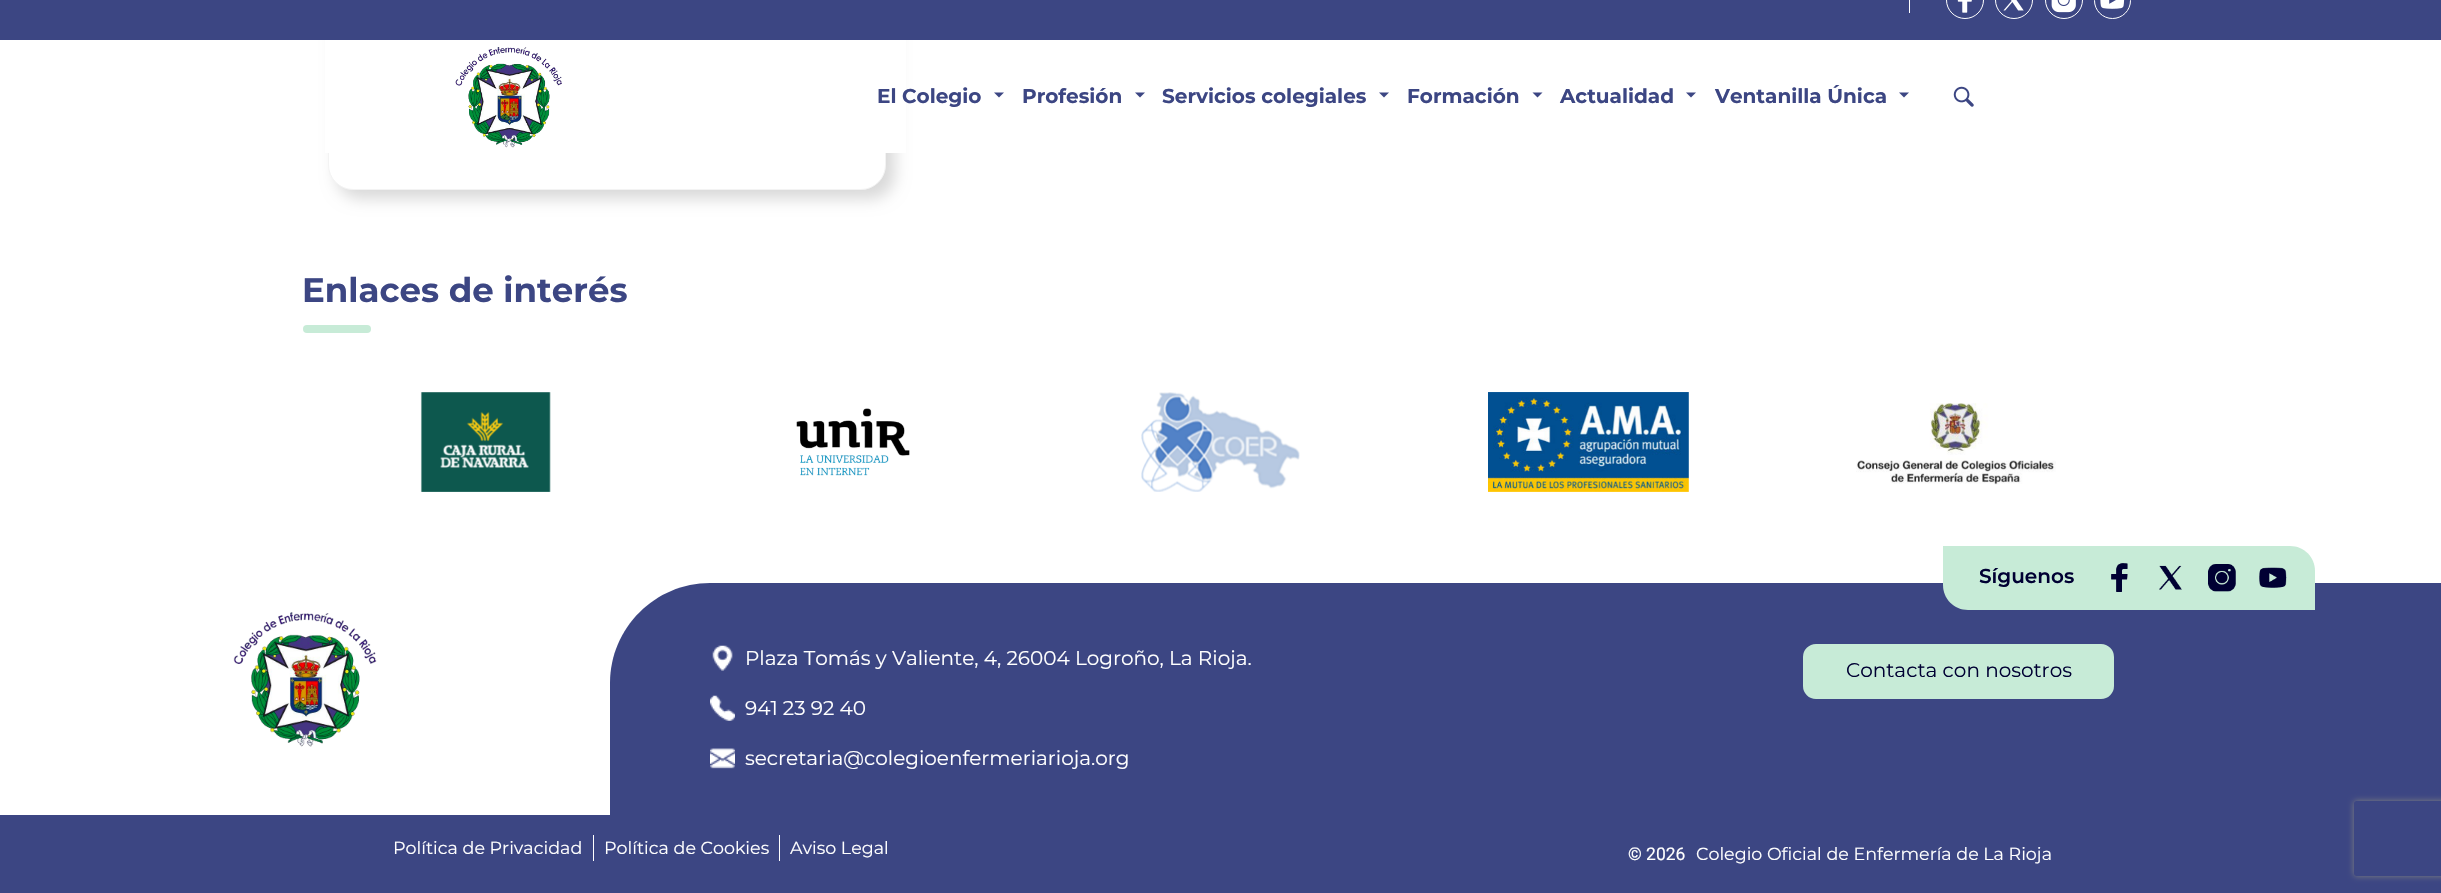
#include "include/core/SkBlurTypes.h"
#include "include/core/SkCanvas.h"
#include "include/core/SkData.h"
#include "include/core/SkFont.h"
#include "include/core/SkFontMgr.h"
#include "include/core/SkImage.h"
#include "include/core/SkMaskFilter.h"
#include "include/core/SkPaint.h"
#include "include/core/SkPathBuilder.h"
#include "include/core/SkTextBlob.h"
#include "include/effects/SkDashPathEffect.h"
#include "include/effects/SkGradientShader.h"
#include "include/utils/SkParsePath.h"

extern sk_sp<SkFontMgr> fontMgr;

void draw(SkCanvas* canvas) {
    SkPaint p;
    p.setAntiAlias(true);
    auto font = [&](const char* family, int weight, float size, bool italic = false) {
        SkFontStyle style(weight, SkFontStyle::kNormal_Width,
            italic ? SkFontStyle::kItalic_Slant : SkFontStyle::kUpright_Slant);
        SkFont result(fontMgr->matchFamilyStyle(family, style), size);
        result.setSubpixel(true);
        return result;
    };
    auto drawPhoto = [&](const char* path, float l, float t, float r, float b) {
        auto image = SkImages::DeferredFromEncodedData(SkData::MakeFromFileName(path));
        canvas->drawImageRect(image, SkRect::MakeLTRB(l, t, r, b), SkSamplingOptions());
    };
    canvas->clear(0xFFFFFFFF);
    p.setColor(0x26000000);
    p.setMaskFilter(SkMaskFilter::MakeBlur(kNormal_SkBlurStyle, 7.5f));
    canvas->drawRoundRect(SkRect::MakeLTRB(336, -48, 895, 199), 25, 25, p);
    p.setMaskFilter(nullptr);
    p.setColor(0xFFFFFFFF);
    canvas->drawRoundRect(SkRect::MakeLTRB(328.5f, -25.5f, 885.5f, 189.5f), 24.5f, 24.5f, p);
    p.setStyle(SkPaint::kStroke_Style);
    p.setStrokeWidth(1);
    p.setColor(0xFFF3F3F3);
    canvas->drawRoundRect(SkRect::MakeLTRB(328.5f, -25.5f, 885.5f, 189.5f), 24.5f, 24.5f, p);
    p.setStyle(SkPaint::kFill_Style);
    p.setColor(0xFF3C4683);
    canvas->drawRect(SkRect::MakeLTRB(0, 0, 2441, 40), p);
    p.setColor(0xFFFFFFFF);
    canvas->drawRect(SkRect::MakeLTRB(1909, 0, 1910, 13), p);
    p.setStyle(SkPaint::kStroke_Style);
    canvas->drawCircle(1965, 0, 18.5f, p);
    drawPhoto("media/1.png", 1957, 0, 1972, 13);
    canvas->drawCircle(2014, 0, 18.5f, p);
    drawPhoto("media/2.png", 2003, 0, 2024, 11);
    canvas->drawCircle(2064, 0, 18.5f, p);
    drawPhoto("media/3.png", 2051, 0, 2076, 13);
    canvas->drawRoundRect(SkRect::MakeLTRB(2094.5f, -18.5f, 2130.5f, 18.5f), 18, 18, p);
    drawPhoto("media/4.png", 2100, 0, 2125, 9);
    p.setStyle(SkPaint::kFill_Style);
    canvas->drawRect(SkRect::MakeLTRB(325, 40, 906, 153), p);
    drawPhoto("media/5.png", 455, 47, 562, 148);
    auto font1 = font("Montserrat", 700, 20);
    p.setColor(0xFF3C4683);
    canvas->drawString("El Colegio", 877, 103, font1, p);
    canvas->drawPath(SkPathBuilder().moveTo(994, 92.5f).lineTo(1004, 92.5f).lineTo(999, 97.5f).close().detach(), p);
    canvas->drawString("Profesión", 1022, 103, font1, p);
    canvas->drawPath(SkPathBuilder().moveTo(1135, 92.5f).lineTo(1145, 92.5f).lineTo(1140, 97.5f).close().detach(), p);
    canvas->drawString("Servicios colegiales", 1162, 103, font1, p);
    canvas->drawPath(SkPathBuilder().moveTo(1379, 92.5f).lineTo(1389, 92.5f).lineTo(1384, 97.5f).close().detach(), p);
    canvas->drawString("Formación", 1407, 103, font1, p);
    canvas->drawPath(SkPathBuilder().moveTo(1532.5f, 92.5f).lineTo(1542.5f, 92.5f).lineTo(1537.5f, 97.5f).close().detach(), p);
    canvas->drawString("Actualidad", 1560, 103, font1, p);
    canvas->drawPath(SkPathBuilder().moveTo(1686, 92.5f).lineTo(1696, 92.5f).lineTo(1691, 97.5f).close().detach(), p);
    canvas->drawString("Ventanilla Única", 1715, 103, font1, p);
    canvas->drawPath(SkPathBuilder().moveTo(1899, 92.5f).lineTo(1909, 92.5f).lineTo(1904, 97.5f).close().detach(), p);
    drawPhoto("media/6.png", 1953, 86, 1974, 107);
    auto font2 = font("Montserrat", 700, 34);
    canvas->drawString("Enlaces de interés", 302, 302, font2, p);
    p.setColor(0xFFC7EBD7);
    canvas->drawRoundRect(SkRect::MakeLTRB(303, 325, 371, 333), 4, 4, p);
    drawPhoto("media/7.png", 420, 392, 551, 492);
    drawPhoto("media/8.png", 796, 408, 910, 476);
    drawPhoto("media/9.png", 1141, 392, 1300, 492);
    drawPhoto("media/10.png", 1488, 392, 1689, 492);
    drawPhoto("media/11.png", 1856, 403, 2056, 485);
    drawPhoto("media/12.png", 233, 612, 377, 747);
    p.setColor(0xFF3C4683);
    canvas->drawPath(SkPathBuilder().moveTo(710, 583).lineTo(2441, 583).lineTo(2441, 815).lineTo(610, 815).lineTo(610, 683).cubicTo(610, 628, 655, 583, 710, 583).close().detach(), p);
    p.setColor(0xFFC7EBD7);
    canvas->drawPath(SkPathBuilder().moveTo(1943, 546).lineTo(2290, 546).cubicTo(2304, 546, 2315, 557, 2315, 571).lineTo(2315, 610).lineTo(1968, 610).cubicTo(1954, 610, 1943, 599, 1943, 585).close().detach(), p);
    auto font3 = font("Montserrat", 600, 20);
    p.setColor(0xFF000033);
    canvas->drawString("Síguenos", 1979, 583, font3, p);
    drawPhoto("media/13.png", 2111, 563, 2128, 592);
    drawPhoto("media/14.png", 2159, 565, 2182, 590);
    drawPhoto("media/15.png", 2208, 564, 2236, 592);
    drawPhoto("media/16.png", 2259, 567, 2287, 588);
    drawPhoto("media/17.png", 712, 645, 733, 671);
    auto font4 = font("Montserrat", 400, 20);
    p.setColor(0xFFFFFFFF);
    canvas->drawString("Plaza Tomás y Valiente, 4, 26004 Logroño, La Rioja.", 745, 665, font4, p);
    drawPhoto("media/18.png", 710, 695, 735, 721);
    canvas->drawString("941 23 92 40", 745, 715, font4, p);
    drawPhoto("media/19.png", 710, 748, 735, 769);
    canvas->drawString("secretaria@colegioenfermeriarioja.org", 745, 765, font4, p);
    p.setColor(0xFFC7EBD7);
    canvas->drawRoundRect(SkRect::MakeLTRB(1804.5f, 645.5f, 2112.5f, 697.5f), 11.5f, 11.5f, p);
    p.setStyle(SkPaint::kStroke_Style);
    p.setStrokeWidth(3);
    canvas->drawRoundRect(SkRect::MakeLTRB(1804.5f, 645.5f, 2112.5f, 697.5f), 11.5f, 11.5f, p);
    p.setStyle(SkPaint::kFill_Style);
    p.setColor(0xFF000033);
    canvas->drawString("Contacta con nosotros", 1846, 677, font4, p);
    p.setColor(0xFF3C4683);
    canvas->drawRect(SkRect::MakeLTRB(0, 815, 2441, 893), p);
    p.setColor(0xFFFFFFFF);
    canvas->drawRect(SkRect::MakeLTRB(593, 835, 594, 861), p);
    auto font5 = font("Montserrat", 400, 17.5f);
    canvas->drawString("Política de Privacidad", 393, 854, font5, p);
    canvas->drawRect(SkRect::MakeLTRB(779, 835, 780, 861), p);
    canvas->drawString("Política de Cookies", 604, 854, font5, p);
    canvas->drawString("Aviso Legal", 790, 854, font5, p);
    auto font6 = font("Roboto", 400, 17.5f);
    canvas->drawString("© 2026", 1628, 860, font6, p);
    canvas->drawString("Colegio Oficial de Enfermería de La Rioja", 1696, 860, font5, p);
    canvas->save();
    canvas->clipPath(SkPathBuilder(SkPathFillType::kEvenOdd).moveTo(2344, 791).lineTo(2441, 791).lineTo(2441, 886).lineTo(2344, 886).close().moveTo(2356.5f, 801).lineTo(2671.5f, 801).cubicTo(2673, 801, 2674, 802, 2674, 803.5f).lineTo(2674, 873.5f).cubicTo(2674, 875, 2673, 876, 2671.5f, 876).lineTo(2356.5f, 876).cubicTo(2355, 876, 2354, 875, 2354, 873.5f).lineTo(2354, 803.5f).cubicTo(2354, 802, 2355, 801, 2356.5f, 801).close().detach(), true);
    p.setColor(0xFF808080);
    p.setMaskFilter(SkMaskFilter::MakeBlur(kNormal_SkBlurStyle, 3));
    canvas->drawRoundRect(SkRect::MakeLTRB(2354, 801, 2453, 876), 2.5f, 2.5f, p);
    p.setMaskFilter(nullptr);
    canvas->restore();
}
